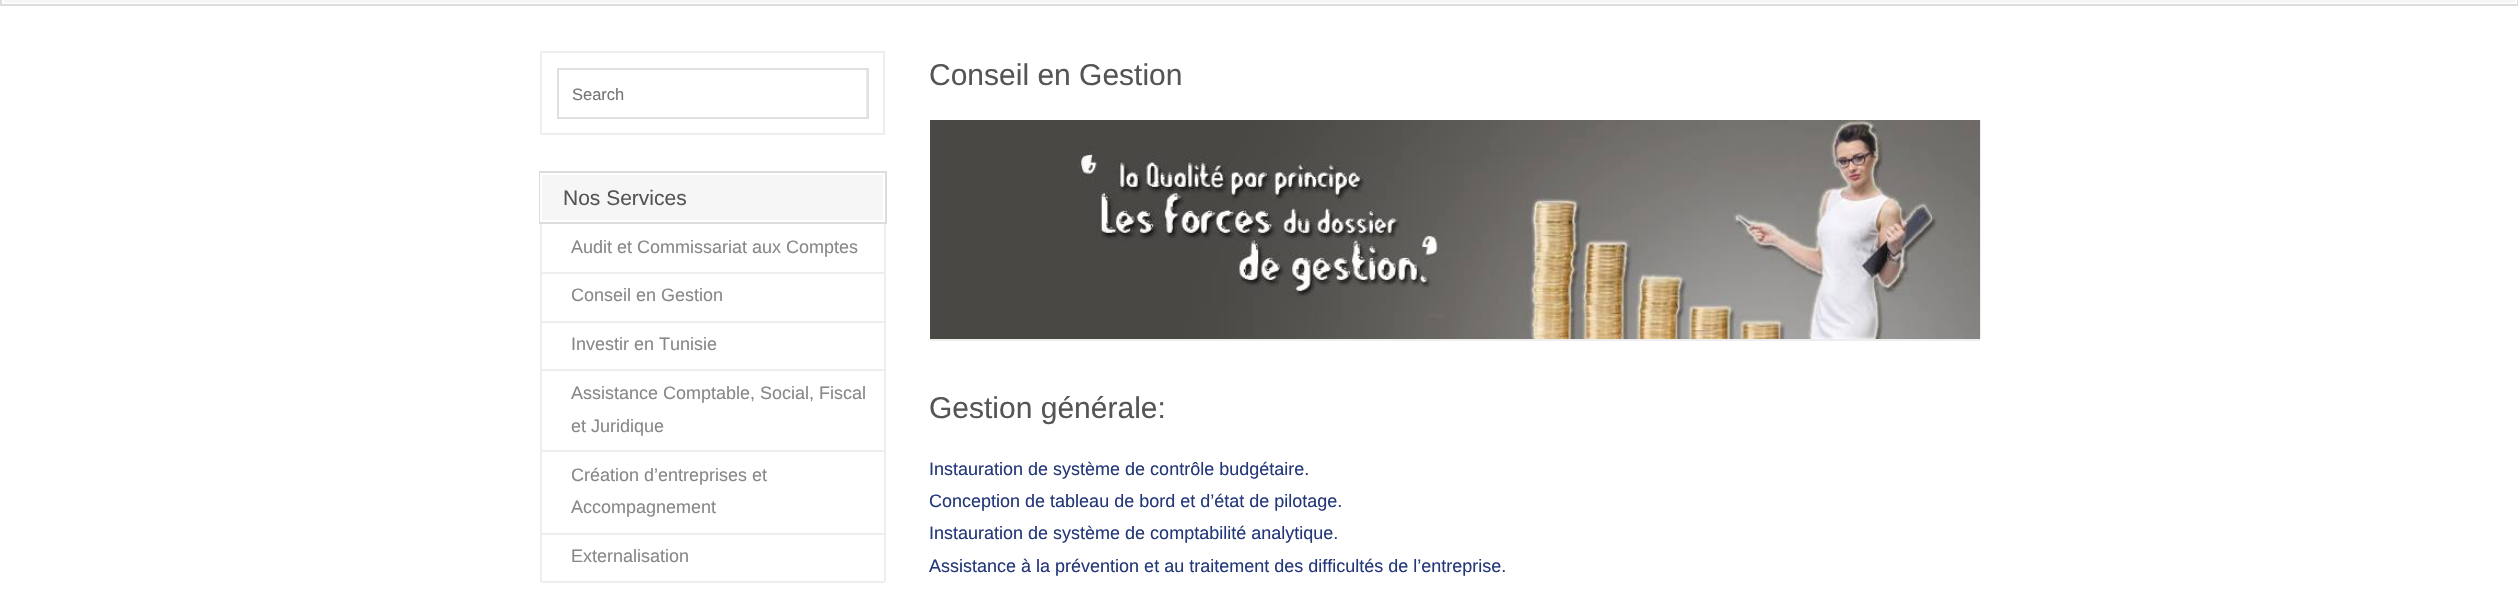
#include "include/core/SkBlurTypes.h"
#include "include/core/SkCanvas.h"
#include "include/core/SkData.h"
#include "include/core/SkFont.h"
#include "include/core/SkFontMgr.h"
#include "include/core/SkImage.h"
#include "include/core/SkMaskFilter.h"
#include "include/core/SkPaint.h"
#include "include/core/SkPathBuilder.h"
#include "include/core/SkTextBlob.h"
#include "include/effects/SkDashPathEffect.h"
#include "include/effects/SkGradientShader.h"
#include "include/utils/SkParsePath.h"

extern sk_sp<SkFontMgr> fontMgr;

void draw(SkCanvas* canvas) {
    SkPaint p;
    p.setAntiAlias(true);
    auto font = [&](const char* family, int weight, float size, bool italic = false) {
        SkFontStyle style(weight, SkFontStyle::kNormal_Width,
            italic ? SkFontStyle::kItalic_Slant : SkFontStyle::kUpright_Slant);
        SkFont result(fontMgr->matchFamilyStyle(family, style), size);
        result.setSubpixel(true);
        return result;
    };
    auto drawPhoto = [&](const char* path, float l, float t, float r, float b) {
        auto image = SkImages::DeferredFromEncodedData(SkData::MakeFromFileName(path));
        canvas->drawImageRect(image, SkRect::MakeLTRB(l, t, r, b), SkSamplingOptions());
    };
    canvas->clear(0xFFFFFFFF);
    p.setColor(0xFFF6F6F6);
    canvas->drawRect(SkRect::MakeLTRB(0, 0, 2518, 3), p);
    p.setStyle(SkPaint::kStroke_Style);
    p.setStrokeWidth(2);
    p.setColor(0xFFFFFFFF);
    canvas->drawRect(SkRect::MakeLTRB(3, -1, 2516, 4), p);
    p.setColor(0xFFDDDDDD);
    canvas->drawRect(SkRect::MakeLTRB(1, -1, 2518, 5), p);
    p.setColor(0xFFEEEEEE);
    canvas->drawRect(SkRect::MakeLTRB(541, 52, 884, 134), p);
    canvas->save();
    canvas->clipRect(SkRect::MakeLTRB(558, 69, 867, 117));
    p.setStyle(SkPaint::kFill_Style);
    canvas->drawPath(SkPathBuilder(SkPathFillType::kEvenOdd).moveTo(410, -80).lineTo(1016, -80).lineTo(1016, 266).lineTo(410, 266).close().moveTo(556, 70).lineTo(866, 70).lineTo(866, 118).lineTo(556, 118).close().detach(), p);
    canvas->restore();
    p.setStyle(SkPaint::kStroke_Style);
    p.setColor(0xFFE0E0E0);
    canvas->drawRect(SkRect::MakeLTRB(558, 69, 868, 118), p);
    auto font1 = font("Liberation Sans", 400, 16.5f);
    p.setStyle(SkPaint::kFill_Style);
    p.setColor(0xFF757575);
    canvas->drawString("Search", 572, 100, font1, p);
    p.setColor(0xFFEEEEEE);
    canvas->drawRect(SkRect::MakeLTRB(884, 222, 886, 582), p);
    canvas->drawRect(SkRect::MakeLTRB(540, 222, 542, 582), p);
    p.setStyle(SkPaint::kStroke_Style);
    p.setColor(0xFFDDDDDD);
    canvas->drawRect(SkRect::MakeLTRB(540, 172, 886, 223), p);
    p.setStyle(SkPaint::kFill_Style);
    p.setColor(0xFFF6F6F6);
    canvas->drawRect(SkRect::MakeLTRB(541, 174, 884, 221), p);
    p.setStyle(SkPaint::kStroke_Style);
    p.setColor(0xFFFFFFFF);
    canvas->drawRect(SkRect::MakeLTRB(541, 174, 884, 221), p);
    auto font2 = font("Liberation Sans", 400, 21);
    p.setStyle(SkPaint::kFill_Style);
    p.setColor(0xFF555555);
    canvas->drawString("Nos Services", 563, 205, font2, p);
    p.setColor(0xFFEEEEEE);
    canvas->drawRect(SkRect::MakeLTRB(542, 272, 884, 274), p);
    auto font3 = font("Liberation Sans", 400, 18);
    p.setColor(0xFF888888);
    canvas->drawString("Audit et Commissariat aux Comptes", 571, 253, font3, p);
    p.setColor(0xFFEEEEEE);
    canvas->drawRect(SkRect::MakeLTRB(542, 321, 884, 323), p);
    p.setColor(0xFF888888);
    canvas->drawString("Conseil en Gestion", 571, 301, font3, p);
    p.setColor(0xFFEEEEEE);
    canvas->drawRect(SkRect::MakeLTRB(542, 369, 884, 371), p);
    p.setColor(0xFF888888);
    canvas->drawString("Investir en Tunisie", 571, 350, font3, p);
    p.setColor(0xFFEEEEEE);
    canvas->drawRect(SkRect::MakeLTRB(542, 450, 884, 452), p);
    p.setColor(0xFF888888);
    canvas->drawString("Assistance Comptable, Social, Fiscal", 571, 399, font3, p);
    canvas->drawString("et Juridique", 571, 432, font3, p);
    p.setColor(0xFFEEEEEE);
    canvas->drawRect(SkRect::MakeLTRB(542, 533, 884, 535), p);
    p.setColor(0xFF888888);
    canvas->drawString("Création d’entreprises et", 571, 481, font3, p);
    canvas->drawString("Accompagnement", 571, 513, font3, p);
    p.setColor(0xFFEEEEEE);
    canvas->drawRect(SkRect::MakeLTRB(542, 581, 884, 583), p);
    p.setColor(0xFF888888);
    canvas->drawString("Externalisation", 571, 562, font3, p);
    auto font4 = font("Liberation Sans", 400, 30);
    p.setColor(0xFF555555);
    canvas->drawString("Conseil en Gestion", 929, 85, font4, p);
    p.setColor(0xFFEEEEEE);
    canvas->drawRect(SkRect::MakeLTRB(1980, 120, 1981, 339), p);
    canvas->drawRect(SkRect::MakeLTRB(930, 339, 1980, 341), p);
    drawPhoto("media/1.png", 930, 120, 1980, 339);
    p.setColor(0xFF555555);
    canvas->drawString("Gestion générale:", 929, 418, font4, p);
    p.setColor(0xFF243879);
    {
        const struct { const char* s; float x, y; } items[] = {
            {"Instauration de système de contrôle budgétaire.", 929, 475},
            {"Conception de tableau de bord et d’état de pilotage.", 929, 507},
            {"Instauration de système de comptabilité analytique.", 929, 539},
            {"Assistance à la prévention et au traitement des difficultés de l’entreprise.", 929, 572},
        };
        for (auto [s, x, y] : items) {
            canvas->drawString(s, x, y, font3, p);
        }
    }
}
